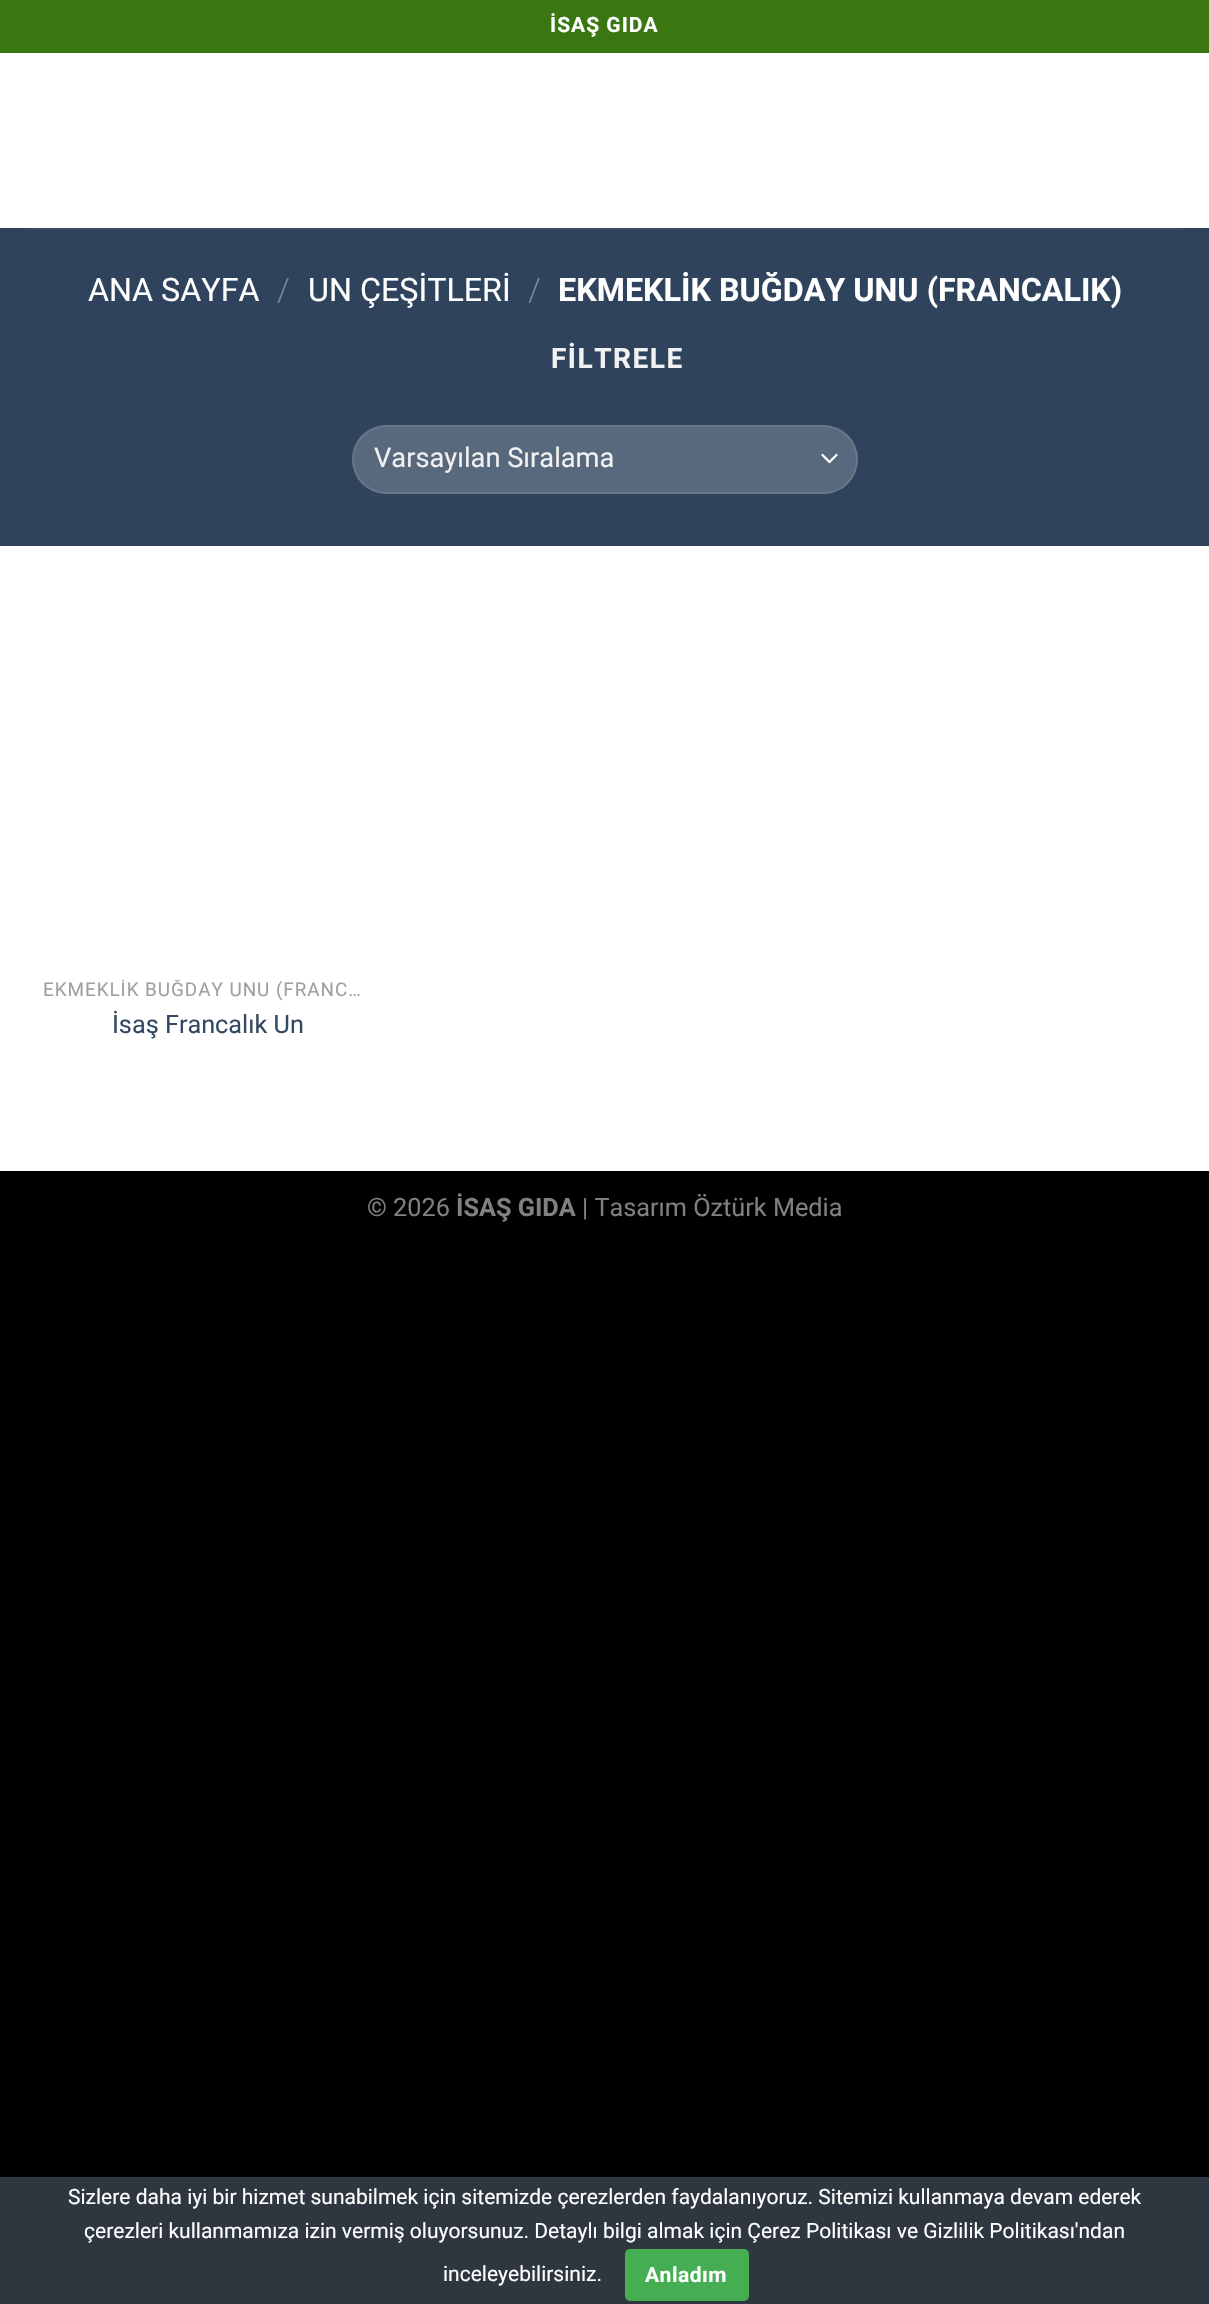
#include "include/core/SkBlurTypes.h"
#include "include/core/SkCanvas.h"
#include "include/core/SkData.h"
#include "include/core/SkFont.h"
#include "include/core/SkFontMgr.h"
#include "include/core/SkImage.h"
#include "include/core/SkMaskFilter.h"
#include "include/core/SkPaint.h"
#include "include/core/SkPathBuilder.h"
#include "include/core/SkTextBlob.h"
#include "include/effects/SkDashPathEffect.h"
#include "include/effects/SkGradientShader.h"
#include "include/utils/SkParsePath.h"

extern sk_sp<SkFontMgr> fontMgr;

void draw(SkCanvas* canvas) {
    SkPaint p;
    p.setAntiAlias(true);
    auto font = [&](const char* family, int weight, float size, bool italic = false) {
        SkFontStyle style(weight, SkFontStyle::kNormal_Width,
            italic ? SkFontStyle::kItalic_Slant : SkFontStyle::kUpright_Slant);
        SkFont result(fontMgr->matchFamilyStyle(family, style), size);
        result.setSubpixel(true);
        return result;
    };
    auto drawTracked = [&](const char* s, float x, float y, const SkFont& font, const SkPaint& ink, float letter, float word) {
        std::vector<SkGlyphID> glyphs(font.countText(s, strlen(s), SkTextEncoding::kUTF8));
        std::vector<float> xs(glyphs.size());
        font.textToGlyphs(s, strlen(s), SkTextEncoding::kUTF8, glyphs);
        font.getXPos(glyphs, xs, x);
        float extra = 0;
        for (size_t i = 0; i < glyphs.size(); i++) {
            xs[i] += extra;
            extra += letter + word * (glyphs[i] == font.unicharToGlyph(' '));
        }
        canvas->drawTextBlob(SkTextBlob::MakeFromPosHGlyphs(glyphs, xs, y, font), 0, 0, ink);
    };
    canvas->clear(0xFF000000);
    p.setColor(0xFFFFFFFF);
    canvas->drawRect(SkRect::MakeLTRB(0, 53, 1209, 1171), p);
    p.setColor(0xFF3A7711);
    canvas->drawRect(SkRect::MakeLTRB(0, 0, 1209, 53), p);
    auto font1 = font("Roboto", 700, 21);
    p.setColor(0xFFFFFFFF);
    drawTracked("İSAŞ GIDA", 550, 32, font1, p, 1, 0);
    p.setColor(0xFF30435C);
    canvas->drawRect(SkRect::MakeLTRB(0, 228, 1209, 546), p);
    p.setColor(0xFF37485F);
    canvas->drawRect(SkRect::MakeLTRB(26, 228, 1183, 230), p);
    auto font2 = font("Roboto", 400, 32.25f);
    p.setColor(0xFFFFFFFF);
    canvas->drawString("ANA SAYFA", 88, 301, font2, p);
    auto font3 = font("Roboto", 300, 32.25f);
    p.setColor(0xFF788595);
    canvas->drawString("/", 277, 301, font3, p);
    p.setColor(0xFFFFFFFF);
    canvas->drawString("UN ÇEŞİTLERİ", 308, 301, font2, p);
    p.setColor(0xFF788595);
    canvas->drawString("/", 528, 301, font3, p);
    auto font4 = font("Roboto", 700, 32.25f);
    p.setColor(0xFFFFFFFF);
    canvas->drawString("EKMEKLİK BUĞDAY UNU (FRANCALIK)", 558, 301, font4, p);
    auto font5 = font("Roboto", 700, 28);
    p.setColor(0xFFF1F1F1);
    drawTracked("FİLTRELE", 551, 368, font5, p, 1.5f, 0);
    p.setColor(0xFF59697D);
    canvas->drawRoundRect(SkRect::MakeLTRB(352, 425, 858, 494), 34.5f, 34.5f, p);
    p.setStyle(SkPaint::kStroke_Style);
    p.setStrokeWidth(2.3f);
    p.setStrokeCap(SkPaint::kRound_Cap);
    p.setStrokeJoin(SkPaint::kRound_Join);
    p.setColor(0xFFFFFFFF);
    canvas->drawPath(SkPathBuilder().moveTo(822.5f, 455).lineTo(829.5f, 462).lineTo(836.5f, 455).detach(), p);
    p.setStrokeWidth(2);
    p.setStrokeCap(SkPaint::kButt_Cap);
    p.setStrokeJoin(SkPaint::kMiter_Join);
    p.setColor(0x17FFFFFF);
    canvas->drawRoundRect(SkRect::MakeLTRB(353, 426, 857, 493), 33.5f, 33.5f, p);
    auto font6 = font("Roboto", 400, 27.25f);
    p.setStyle(SkPaint::kFill_Style);
    p.setColor(0xFFF1F1F1);
    canvas->drawString("Varsayılan Sıralama", 374, 467, font6, p);
    canvas->save();
    canvas->clipRect(SkRect::MakeLTRB(44, 980, 371, 1003));
    auto font7 = font("Roboto", 400, 18.9f);
    p.setColor(0xFFA0A0A0);
    drawTracked("EKMEKLİK BUĞDAY UNU (FRANC…", 43, 996, font7, p, 0.95f, 0);
    canvas->restore();
    auto font8 = font("Roboto", 400, 25.25f);
    p.setColor(0xFF334862);
    canvas->drawString("İsaş Francalık Un", 112, 1033, font8, p);
    p.setColor(0xFF808080);
    canvas->drawString("© 2026", 367, 1216, font8, p);
    auto font9 = font("Roboto", 700, 25.25f);
    canvas->drawString("İSAŞ GIDA", 456, 1216, font9, p);
    canvas->drawString("| Tasarım Öztürk Media", 582, 1216, font8, p);
    p.setColor(0xFF2E363F);
    canvas->drawRect(SkRect::MakeLTRB(0, 2177, 1209, 2304), p);
    auto font10 = font("Roboto", 400, 21);
    p.setColor(0xFFFFFFFF);
    {
        const struct { const char* s; float x, y; } items[] = {
            {"Sizlere daha iyi bir hizmet sunabilmek için sitemizde çerezlerden faydalanıyoruz. Sitemizi kullanmaya devam ederek", 68, 2204},
            {"çerezleri kullanmamıza izin vermiş oluyorsunuz. Detaylı bilgi almak için Çerez Politikası ve Gizlilik Politikası'ndan", 84, 2238},
            {"inceleyebilirsiniz.", 443, 2281},
        };
        for (auto [s, x, y] : items) {
            canvas->drawString(s, x, y, font10, p);
        }
    }
    p.setColor(0xFF45AE52);
    canvas->drawRoundRect(SkRect::MakeLTRB(625, 2249, 749, 2301), 5, 5, p);
    p.setColor(0xFFFFFFFF);
    drawTracked("Anladım", 645, 2282, font1, p, 0.5f, 0);
}
